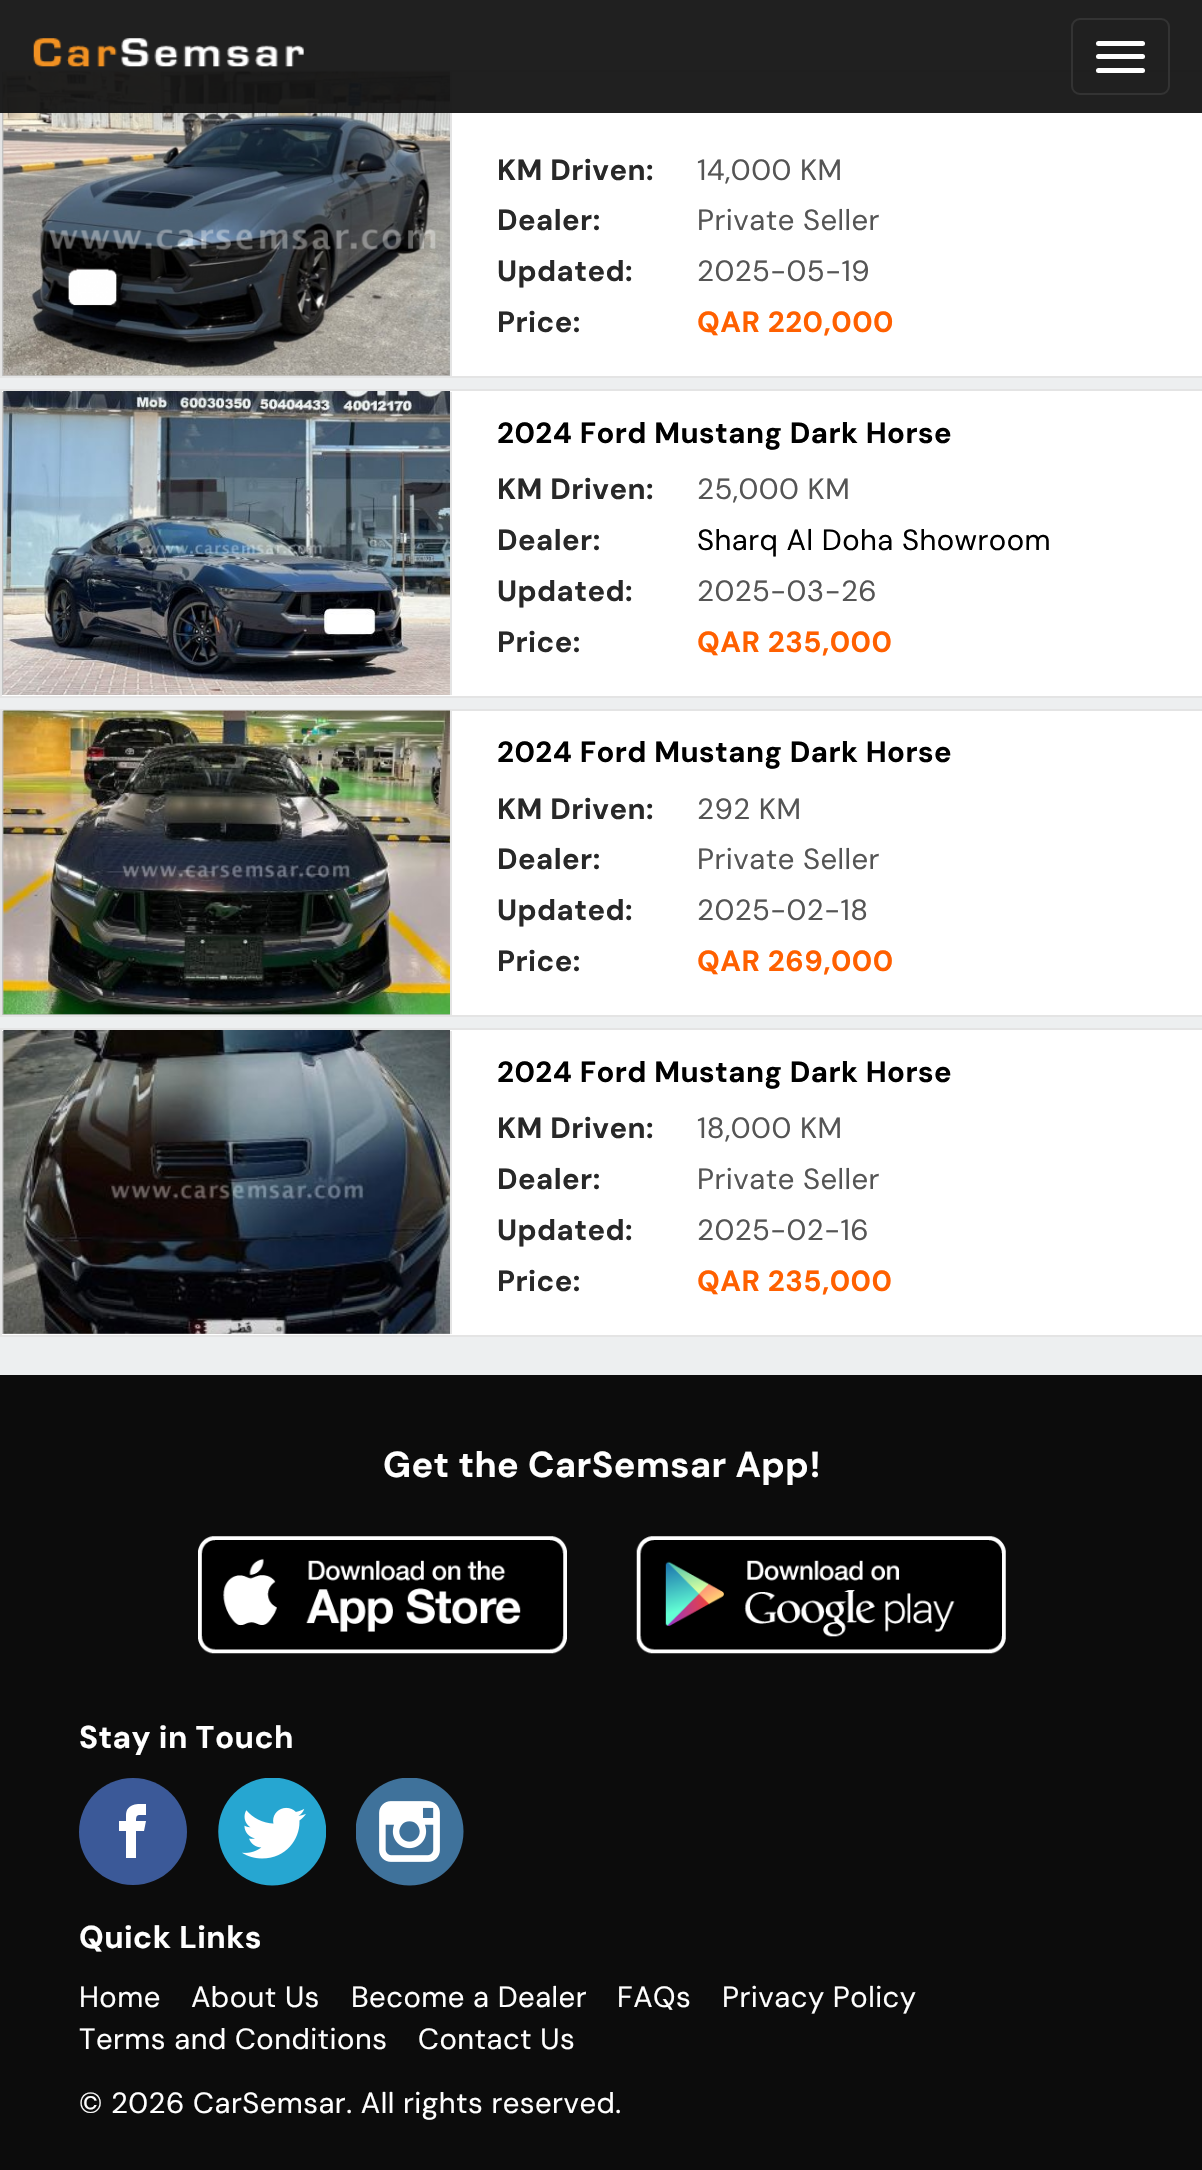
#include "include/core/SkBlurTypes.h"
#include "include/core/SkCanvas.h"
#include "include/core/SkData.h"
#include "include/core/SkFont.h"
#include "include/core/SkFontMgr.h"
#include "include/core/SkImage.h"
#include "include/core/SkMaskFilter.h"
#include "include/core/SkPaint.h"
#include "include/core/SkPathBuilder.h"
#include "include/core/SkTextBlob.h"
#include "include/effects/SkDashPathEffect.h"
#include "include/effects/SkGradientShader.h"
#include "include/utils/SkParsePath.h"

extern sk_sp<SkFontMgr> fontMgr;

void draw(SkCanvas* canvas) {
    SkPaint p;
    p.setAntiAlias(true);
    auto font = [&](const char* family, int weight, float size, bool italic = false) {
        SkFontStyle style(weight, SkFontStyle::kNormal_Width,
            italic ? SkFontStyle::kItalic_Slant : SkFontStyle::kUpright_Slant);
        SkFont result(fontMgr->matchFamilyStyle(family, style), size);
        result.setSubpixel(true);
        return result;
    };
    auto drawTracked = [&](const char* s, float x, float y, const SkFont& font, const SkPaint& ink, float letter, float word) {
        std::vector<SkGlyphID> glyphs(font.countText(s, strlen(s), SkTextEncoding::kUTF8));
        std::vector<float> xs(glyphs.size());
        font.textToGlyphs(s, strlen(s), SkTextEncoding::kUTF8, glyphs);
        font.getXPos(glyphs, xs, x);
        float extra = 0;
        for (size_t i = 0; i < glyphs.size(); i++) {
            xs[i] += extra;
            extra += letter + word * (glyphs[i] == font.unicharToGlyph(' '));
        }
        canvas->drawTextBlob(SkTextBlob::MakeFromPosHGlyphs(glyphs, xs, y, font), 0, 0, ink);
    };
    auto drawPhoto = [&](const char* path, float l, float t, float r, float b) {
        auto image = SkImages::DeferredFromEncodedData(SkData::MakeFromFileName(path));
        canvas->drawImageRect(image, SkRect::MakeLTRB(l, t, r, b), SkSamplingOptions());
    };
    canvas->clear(0xFFEDEFF0);
    p.setColor(0xFFF6F6F6);
    canvas->drawRect(SkRect::MakeLTRB(0, 0, 1202, 36), p);
    p.setColor(0xFFFFFFFF);
    canvas->drawRect(SkRect::MakeLTRB(452, 72, 1202, 376), p);
    p.setStyle(SkPaint::kStroke_Style);
    p.setStrokeWidth(2);
    p.setColor(0xFFE4E4E4);
    canvas->drawRect(SkRect::MakeLTRB(1, 71, 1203, 377), p);
    p.setColor(0xFFC2C2C2);
    canvas->drawRect(SkRect::MakeLTRB(3, 73, 449, 375), p);
    p.setStyle(SkPaint::kFill_Style);
    p.setColor(0xFFE4E4E4);
    canvas->drawRect(SkRect::MakeLTRB(450, 72, 452, 376), p);
    drawPhoto("media/2.png", 3, 71, 450, 376);
    p.setColor(0xF2141414);
    canvas->drawRect(SkRect::MakeLTRB(0, 0, 1202, 113), p);
    drawPhoto("media/1.png", 33, 38, 304, 67);
    p.setStyle(SkPaint::kStroke_Style);
    p.setColor(0xFF333333);
    canvas->drawRoundRect(SkRect::MakeLTRB(1072, 19, 1169, 94), 8, 8, p);
    p.setStyle(SkPaint::kFill_Style);
    p.setColor(0xFFFFFFFF);
    canvas->drawRoundRect(SkRect::MakeLTRB(1096, 41, 1145, 46), 2.5f, 2.5f, p);
    canvas->drawRoundRect(SkRect::MakeLTRB(1096, 54, 1145, 59), 2.5f, 2.5f, p);
    canvas->drawRoundRect(SkRect::MakeLTRB(1096, 68, 1145, 73), 2.5f, 2.5f, p);
    auto font1 = font("DM Sans", 700, 29.25f);
    p.setColor(0xFF282828);
    drawTracked("KM Driven:", 497, 180, font1, p, 0.45f, 0);
    auto font2 = font("DM Sans", 400, 29.25f);
    p.setColor(0xFF555555);
    drawTracked("14,000 KM", 697, 180, font2, p, 0.45f, 0);
    p.setColor(0xFF282828);
    drawTracked("Dealer:", 497, 230, font1, p, 0.45f, 0);
    p.setColor(0xFF555555);
    drawTracked("Private Seller", 697, 230, font2, p, 0.45f, 0);
    p.setColor(0xFF282828);
    drawTracked("Updated:", 497, 281, font1, p, 0.45f, 0);
    p.setColor(0xFF555555);
    drawTracked("2025-05-19", 697, 281, font2, p, 0.45f, 0);
    p.setColor(0xFF282828);
    drawTracked("Price:", 497, 332, font1, p, 0.45f, 0);
    p.setColor(0xFFFF6000);
    drawTracked("QAR 220,000", 697, 332, font1, p, 0.45f, 0);
    p.setColor(0xFFFFFFFF);
    canvas->drawRect(SkRect::MakeLTRB(1, 390, 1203, 697), p);
    p.setStyle(SkPaint::kStroke_Style);
    p.setColor(0xFFE4E4E4);
    canvas->drawRect(SkRect::MakeLTRB(1, 390, 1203, 697), p);
    p.setColor(0xFFC2C2C2);
    canvas->drawRect(SkRect::MakeLTRB(3, 393, 449, 694), p);
    p.setStyle(SkPaint::kFill_Style);
    p.setColor(0xFFE4E4E4);
    canvas->drawRect(SkRect::MakeLTRB(450, 392, 452, 695), p);
    drawPhoto("media/3.png", 3, 391, 450, 695);
    p.setColor(0xFF000000);
    drawTracked("2024 Ford Mustang Dark Horse", 497, 443, font1, p, 0.45f, 0);
    p.setColor(0xFF282828);
    drawTracked("KM Driven:", 497, 499, font1, p, 0.45f, 0);
    p.setColor(0xFF555555);
    drawTracked("25,000 KM", 697, 499, font2, p, 0.45f, 0);
    p.setColor(0xFF282828);
    drawTracked("Dealer:", 497, 550, font1, p, 0.45f, 0);
    p.setColor(0xFF000000);
    drawTracked("Sharq Al Doha Showroom", 697, 550, font2, p, 0.45f, 0);
    p.setColor(0xFF282828);
    drawTracked("Updated:", 497, 601, font1, p, 0.45f, 0);
    p.setColor(0xFF555555);
    drawTracked("2025-03-26", 697, 601, font2, p, 0.45f, 0);
    p.setColor(0xFF282828);
    drawTracked("Price:", 497, 652, font1, p, 0.45f, 0);
    p.setColor(0xFFFF6000);
    drawTracked("QAR 235,000", 697, 652, font1, p, 0.45f, 0);
    p.setColor(0xFFFFFFFF);
    canvas->drawRect(SkRect::MakeLTRB(452, 711, 1202, 1015), p);
    p.setStyle(SkPaint::kStroke_Style);
    p.setColor(0xFFE4E4E4);
    canvas->drawRect(SkRect::MakeLTRB(1, 710, 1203, 1016), p);
    p.setColor(0xFFC2C2C2);
    canvas->drawRect(SkRect::MakeLTRB(3, 712, 449, 1014), p);
    p.setStyle(SkPaint::kFill_Style);
    p.setColor(0xFFE4E4E4);
    canvas->drawRect(SkRect::MakeLTRB(450, 711, 452, 1015), p);
    drawPhoto("media/4.png", 3, 710, 450, 1015);
    p.setColor(0xFF000000);
    drawTracked("2024 Ford Mustang Dark Horse", 497, 762, font1, p, 0.45f, 0);
    p.setColor(0xFF282828);
    drawTracked("KM Driven:", 497, 819, font1, p, 0.45f, 0);
    p.setColor(0xFF555555);
    drawTracked("292 KM", 697, 819, font2, p, 0.45f, 0);
    p.setColor(0xFF282828);
    drawTracked("Dealer:", 497, 869, font1, p, 0.45f, 0);
    p.setColor(0xFF555555);
    drawTracked("Private Seller", 697, 869, font2, p, 0.45f, 0);
    p.setColor(0xFF282828);
    drawTracked("Updated:", 497, 920, font1, p, 0.45f, 0);
    p.setColor(0xFF555555);
    drawTracked("2025-02-18", 697, 920, font2, p, 0.45f, 0);
    p.setColor(0xFF282828);
    drawTracked("Price:", 497, 971, font1, p, 0.45f, 0);
    p.setColor(0xFFFF6000);
    drawTracked("QAR 269,000", 697, 971, font1, p, 0.45f, 0);
    p.setColor(0xFFFFFFFF);
    canvas->drawRect(SkRect::MakeLTRB(1, 1029, 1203, 1336), p);
    p.setStyle(SkPaint::kStroke_Style);
    p.setColor(0xFFE4E4E4);
    canvas->drawRect(SkRect::MakeLTRB(1, 1029, 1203, 1336), p);
    p.setColor(0xFFC2C2C2);
    canvas->drawRect(SkRect::MakeLTRB(3, 1032, 449, 1333), p);
    p.setStyle(SkPaint::kFill_Style);
    p.setColor(0xFFE4E4E4);
    canvas->drawRect(SkRect::MakeLTRB(450, 1031, 452, 1334), p);
    drawPhoto("media/5.png", 3, 1030, 450, 1334);
    p.setColor(0xFF000000);
    drawTracked("2024 Ford Mustang Dark Horse", 497, 1082, font1, p, 0.45f, 0);
    p.setColor(0xFF282828);
    drawTracked("KM Driven:", 497, 1138, font1, p, 0.45f, 0);
    p.setColor(0xFF555555);
    drawTracked("18,000 KM", 697, 1138, font2, p, 0.45f, 0);
    p.setColor(0xFF282828);
    drawTracked("Dealer:", 497, 1189, font1, p, 0.45f, 0);
    p.setColor(0xFF555555);
    drawTracked("Private Seller", 697, 1189, font2, p, 0.45f, 0);
    p.setColor(0xFF282828);
    drawTracked("Updated:", 497, 1240, font1, p, 0.45f, 0);
    p.setColor(0xFF555555);
    drawTracked("2025-02-16", 697, 1240, font2, p, 0.45f, 0);
    p.setColor(0xFF282828);
    drawTracked("Price:", 497, 1291, font1, p, 0.45f, 0);
    p.setColor(0xFFFF6000);
    drawTracked("QAR 235,000", 697, 1291, font1, p, 0.45f, 0);
    p.setColor(0xFF0C0C0C);
    canvas->drawRect(SkRect::MakeLTRB(0, 1375, 1202, 2170), p);
    auto font3 = font("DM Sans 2", 700, 36);
    p.setColor(0xFFFFFFFF);
    drawTracked("Get the CarSemsar App!", 383, 1477, font3, p, 0.45f, 0);
    drawPhoto("media/6.png", 198, 1536, 567, 1654);
    drawPhoto("media/7.png", 636, 1536, 1006, 1654);
    auto font4 = font("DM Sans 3", 700, 31.5f);
    drawTracked("Stay in Touch", 79, 1748, font4, p, 0.45f, 0);
    p.setColor(0xFF3B5998);
    canvas->drawPath(SkPathBuilder().moveTo(133, 1778).cubicTo(163, 1778, 187, 1802, 187, 1832).cubicTo(187, 1861, 163, 1885, 133, 1885).cubicTo(103, 1885, 79, 1861, 79, 1832).cubicTo(79, 1802, 103, 1778, 133, 1778).close().detach(), p);
    p.setColor(0xFFFFFFFF);
    canvas->drawPath(SkPathBuilder().moveTo(139, 1815).lineTo(146, 1815).lineTo(146, 1804).lineTo(138, 1804).cubicTo(128, 1805, 126, 1810, 126, 1816).lineTo(126, 1821).lineTo(119, 1821).lineTo(119, 1831).lineTo(126, 1831).lineTo(126, 1858).lineTo(136, 1858).lineTo(136, 1831).lineTo(144, 1831).lineTo(146, 1821).lineTo(136, 1821).cubicTo(136, 1819, 136, 1815, 139, 1815).close().detach(), p);
    drawPhoto("media/8.png", 218, 1778, 326, 1886);
    drawPhoto("media/9.png", 356, 1778, 464, 1886);
    drawTracked("Quick Links", 79, 1948, font4, p, 0.45f, 0);
    {
        const struct { const char* s; float x, y; } items[] = {
            {"Home", 79, 2007},
            {"About Us", 191, 2007},
            {"Become a Dealer", 351, 2007},
            {"FAQs", 617, 2007},
            {"Privacy Policy", 722, 2007},
            {"Terms and Conditions", 79, 2049},
            {"Contact Us", 418, 2049},
            {"© 2026 CarSemsar. All rights reserved.", 79, 2113},
        };
        for (auto [s, x, y] : items) {
            drawTracked(s, x, y, font2, p, 0.45f, 0);
        }
    }
}
